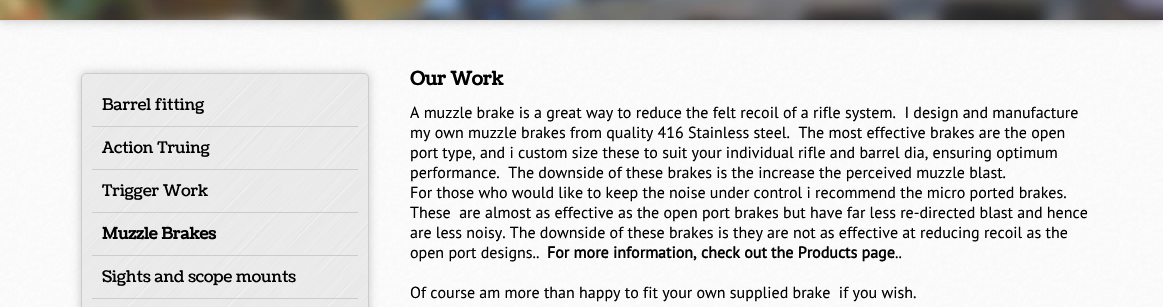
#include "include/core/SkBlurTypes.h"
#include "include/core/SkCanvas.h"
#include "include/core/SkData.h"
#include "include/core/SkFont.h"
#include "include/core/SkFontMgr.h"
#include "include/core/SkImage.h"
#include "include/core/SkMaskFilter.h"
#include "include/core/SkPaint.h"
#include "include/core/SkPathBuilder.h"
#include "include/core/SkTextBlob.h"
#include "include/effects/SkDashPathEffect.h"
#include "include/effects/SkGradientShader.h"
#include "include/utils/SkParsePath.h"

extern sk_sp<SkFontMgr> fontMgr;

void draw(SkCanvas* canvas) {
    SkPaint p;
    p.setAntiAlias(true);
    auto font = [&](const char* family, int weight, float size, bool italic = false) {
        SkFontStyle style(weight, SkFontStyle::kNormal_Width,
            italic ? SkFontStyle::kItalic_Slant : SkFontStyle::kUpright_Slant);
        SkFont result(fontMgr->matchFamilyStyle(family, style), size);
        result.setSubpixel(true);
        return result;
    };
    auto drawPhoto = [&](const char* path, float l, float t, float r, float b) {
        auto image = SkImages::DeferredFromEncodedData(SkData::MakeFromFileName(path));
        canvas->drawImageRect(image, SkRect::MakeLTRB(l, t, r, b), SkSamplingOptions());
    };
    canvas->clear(0xFFFFFFFF);
    drawPhoto("media/1.png", 0, 21, 1163, 307);
    p.setColor(0x33000000);
    p.setMaskFilter(SkMaskFilter::MakeBlur(kNormal_SkBlurStyle, 5));
    canvas->drawRect(SkRect::MakeLTRB(0, -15, 1163, 21), p);
    p.setMaskFilter(nullptr);
    drawPhoto("media/2.png", 0, 0, 1163, 20);
    p.setColor(0xFFDDDDDD);
    canvas->drawRect(SkRect::MakeLTRB(0, 20, 1163, 21), p);
    p.setColor(0x33000000);
    p.setMaskFilter(SkMaskFilter::MakeBlur(kNormal_SkBlurStyle, 5));
    canvas->drawRoundRect(SkRect::MakeLTRB(81, 73, 369, 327), 5, 5, p);
    p.setMaskFilter(nullptr);
    drawPhoto("media/3.png", 81, 73, 369, 307);
    p.setStyle(SkPaint::kStroke_Style);
    p.setStrokeWidth(1);
    p.setColor(0xFFCCCCCC);
    canvas->drawRoundRect(SkRect::MakeLTRB(81.5f, 73.5f, 368.5f, 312.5f), 4.5f, 4.5f, p);
    p.setStyle(SkPaint::kFill_Style);
    canvas->drawRect(SkRect::MakeLTRB(92, 126, 358, 127), p);
    auto font1 = font("Coustard", 400, 16);
    p.setColor(0xFF000000);
    canvas->drawString("Barrel fitting", 102, 110, font1, p);
    p.setColor(0xFFCCCCCC);
    canvas->drawRect(SkRect::MakeLTRB(92, 169, 358, 170), p);
    p.setColor(0xFF000000);
    canvas->drawString("Action Truing", 102, 153, font1, p);
    p.setColor(0xFFCCCCCC);
    canvas->drawRect(SkRect::MakeLTRB(92, 212, 358, 213), p);
    p.setColor(0xFF000000);
    canvas->drawString("Trigger Work", 102, 196, font1, p);
    p.setColor(0xFFCCCCCC);
    canvas->drawRect(SkRect::MakeLTRB(92, 255, 358, 256), p);
    auto font2 = font("Coustard", 700, 16);
    p.setColor(0xFF000000);
    canvas->drawString("Muzzle Brakes", 102, 239, font2, p);
    p.setColor(0xFFCCCCCC);
    canvas->drawRect(SkRect::MakeLTRB(92, 298, 358, 299), p);
    p.setColor(0xFF000000);
    canvas->drawString("Sights and scope mounts", 102, 282, font1, p);
    auto font3 = font("Coustard", 700, 18.75f);
    canvas->drawString("Our Work", 410, 85, font3, p);
    auto font4 = font("PT Sans", 400, 16);
    {
        const struct { const char* s; float x, y; } items[] = {
            {"A muzzle brake is a great way to reduce the felt recoil of a rifle system.  I design and manufacture", 410, 118},
            {"my own muzzle brakes from quality 416 Stainless steel.  The most effective brakes are the open", 410, 138},
            {"port type, and i custom size these to suit your individual rifle and barrel dia, ensuring optimum", 410, 158},
            {"performance.  The downside of these brakes is the increase the perceived muzzle blast.", 410, 178},
            {"For those who would like to keep the noise under control i recommend the micro ported brakes.", 410, 198},
            {"These  are almost as effective as the open port brakes but have far less re-directed blast and hence", 410, 218},
            {"are less noisy. The downside of these brakes is they are not as effective at reducing recoil as the", 410, 238},
            {"open port designs..", 410, 258},
        };
        for (auto [s, x, y] : items) {
            canvas->drawString(s, x, y, font4, p);
        }
    }
    auto font5 = font("PT Sans", 700, 16);
    canvas->drawString("For more information, check out the Products page", 547, 258, font5, p);
    canvas->drawString("..", 895, 258, font4, p);
    canvas->drawString("Of course am more than happy to fit your own supplied brake  if you wish.", 410, 298, font4, p);
}
